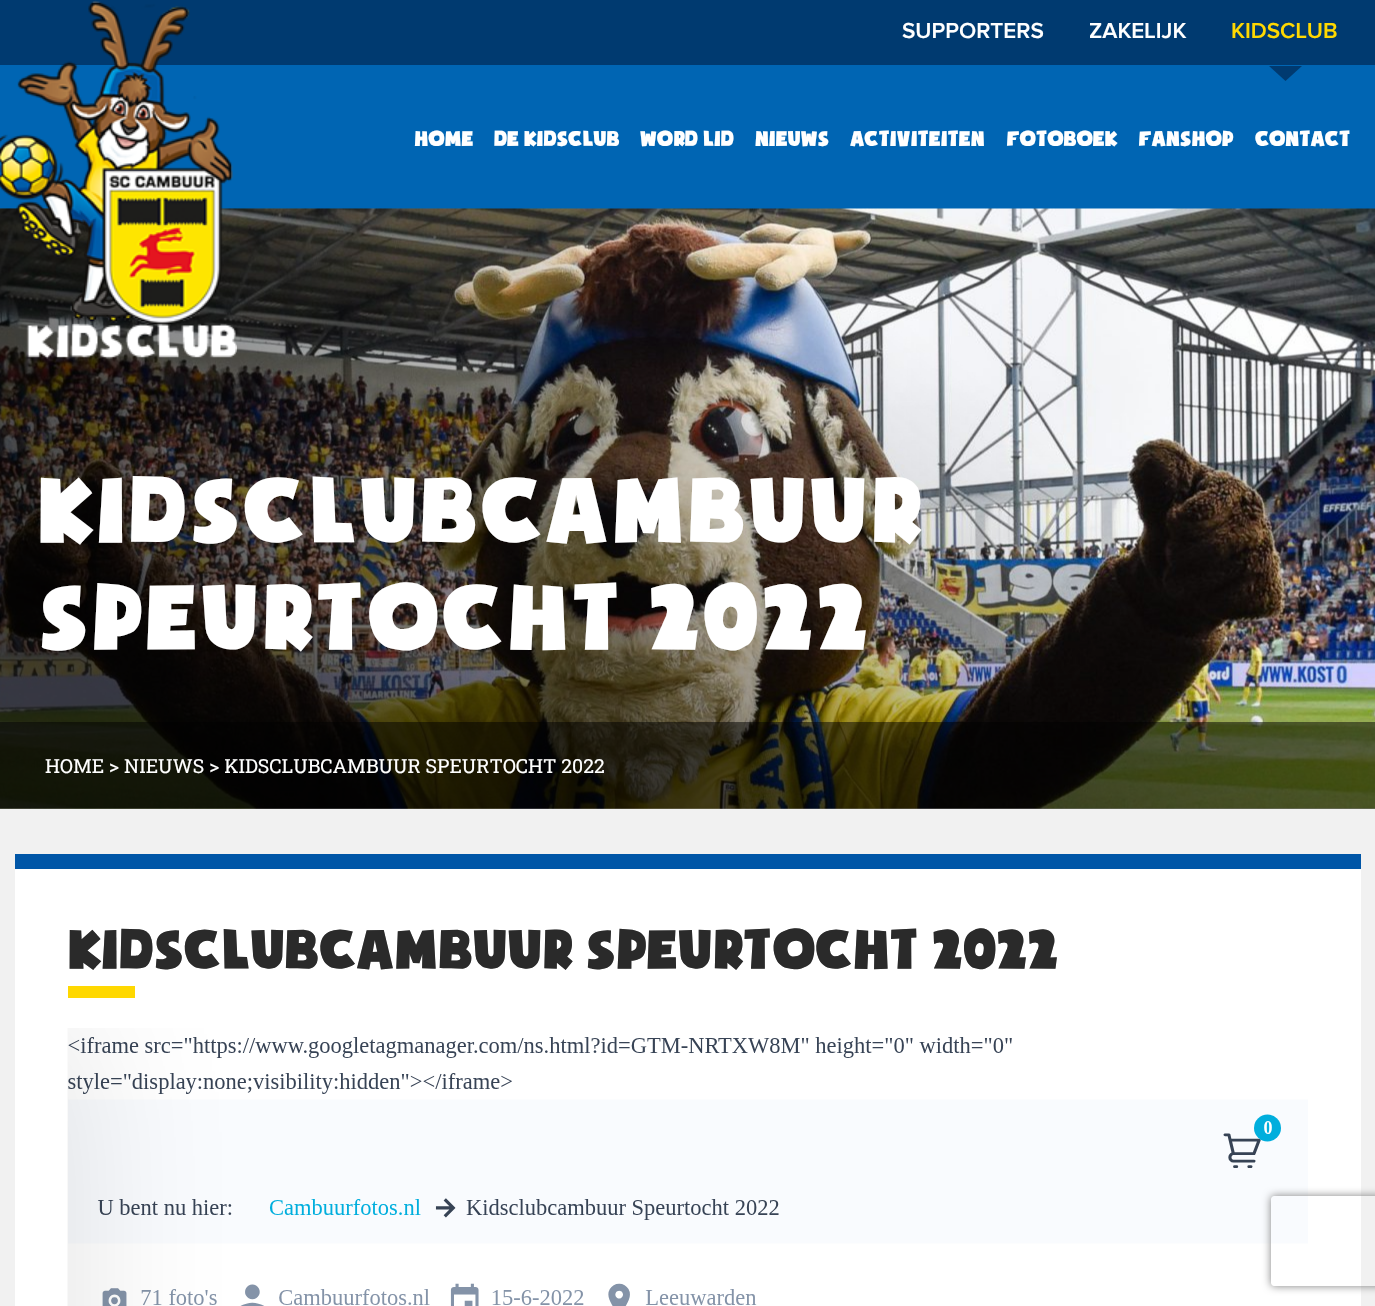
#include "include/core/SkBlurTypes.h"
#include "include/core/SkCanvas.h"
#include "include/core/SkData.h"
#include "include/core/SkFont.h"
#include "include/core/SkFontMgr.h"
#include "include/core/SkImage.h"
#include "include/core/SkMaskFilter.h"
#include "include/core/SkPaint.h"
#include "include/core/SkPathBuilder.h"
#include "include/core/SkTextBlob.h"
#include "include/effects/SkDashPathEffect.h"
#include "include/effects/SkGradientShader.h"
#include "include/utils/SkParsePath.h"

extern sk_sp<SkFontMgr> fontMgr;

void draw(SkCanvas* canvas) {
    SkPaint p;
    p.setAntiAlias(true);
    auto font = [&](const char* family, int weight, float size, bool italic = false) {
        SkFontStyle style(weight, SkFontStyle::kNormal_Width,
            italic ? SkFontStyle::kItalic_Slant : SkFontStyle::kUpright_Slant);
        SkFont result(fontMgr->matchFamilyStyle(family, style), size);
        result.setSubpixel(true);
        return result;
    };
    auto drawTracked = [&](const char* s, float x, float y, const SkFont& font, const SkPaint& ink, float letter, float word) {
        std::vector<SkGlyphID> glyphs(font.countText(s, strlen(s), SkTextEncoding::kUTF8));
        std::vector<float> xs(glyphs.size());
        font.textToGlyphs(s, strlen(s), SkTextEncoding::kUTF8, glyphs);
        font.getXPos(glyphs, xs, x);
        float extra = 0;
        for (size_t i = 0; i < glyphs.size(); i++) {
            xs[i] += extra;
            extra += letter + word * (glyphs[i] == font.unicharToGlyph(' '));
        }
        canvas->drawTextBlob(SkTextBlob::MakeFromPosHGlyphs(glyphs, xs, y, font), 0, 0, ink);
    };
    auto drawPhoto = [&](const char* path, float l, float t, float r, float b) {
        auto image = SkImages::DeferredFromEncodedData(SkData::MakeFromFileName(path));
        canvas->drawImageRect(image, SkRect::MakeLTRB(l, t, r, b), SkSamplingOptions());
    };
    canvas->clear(0xFFF1F1F1);
    p.setColor(0xFF003A70);
    canvas->drawRect(SkRect::MakeLTRB(0, 0, 1375, 65), p);
    p.setColor(0xFF0065B3);
    canvas->drawRect(SkRect::MakeLTRB(0, 65, 1375, 209), p);
    drawPhoto("media/2.png", 0, 208, 1375, 809);
    drawPhoto("media/3.png", 0, 208, 1375, 809);
    drawPhoto("media/1.png", 0, 0, 237, 359);
    auto font1 = font("Proxima Nova", 600, 22.5f);
    p.setColor(0xFFFFFFFF);
    canvas->drawString("SUPPORTERS", 902, 38, font1, p);
    canvas->drawString("ZAKELIJK", 1089, 38, font1, p);
    p.setColor(0xFFFFD800);
    canvas->drawString("KIDSCLUB", 1231, 38, font1, p);
    p.setColor(0xFF003A70);
    canvas->drawPath(SkPathBuilder().moveTo(1269, 66).lineTo(1302, 66).lineTo(1285.5f, 81).close().detach(), p);
    auto font2 = font("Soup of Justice", 400, 24);
    p.setColor(0xFFFFFFFF);
    {
        const struct { const char* s; float x, y; } items[] = {
            {"Home", 414, 146},
            {"De KidsClub", 494, 146},
            {"Word lid", 640, 146},
            {"Nieuws", 755, 146},
            {"Activiteiten", 850, 146},
            {"Fotoboek", 1006, 146},
            {"Fanshop", 1138, 146},
            {"Contact", 1255, 146},
        };
        for (auto [s, x, y] : items) {
            canvas->drawString(s, x, y, font2, p);
        }
    }
    auto font3 = font("Soup of Justice", 400, 105);
    drawTracked("KIDSCLUBCAMBUUR", 38, 543, font3, p, 3, 0);
    drawTracked("SPEURTOCHT 2022", 38, 650, font3, p, 3, 0);
    p.setColor(0x80000000);
    canvas->drawRect(SkRect::MakeLTRB(0, 722, 1375, 809), p);
    auto font4 = font("Roboto Slab", 400, 19.5f);
    p.setColor(0xFFFFFFFF);
    canvas->drawString("HOME > NIEUWS > KIDSCLUBCAMBUUR SPEURTOCHT 2022", 45, 773, font4, p);
    canvas->drawRect(SkRect::MakeLTRB(15, 869, 1361, 1306), p);
    p.setColor(0xFF0056A7);
    canvas->drawRect(SkRect::MakeLTRB(15, 854, 1361, 869), p);
    auto font5 = font("Soup of Justice", 400, 63);
    p.setColor(0xFF2A2A2A);
    canvas->drawString("KIDSCLUBCAMBUUR SPEURTOCHT 2022", 68, 969, font5, p);
    p.setColor(0xFFFFD800);
    canvas->drawRect(SkRect::MakeLTRB(68, 986, 135, 998), p);
    drawPhoto("media/4.png", 67, 1028, 1308, 1306);
    canvas->save();
    canvas->clipPath(SkPathBuilder(SkPathFillType::kEvenOdd).moveTo(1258, 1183).lineTo(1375, 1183).lineTo(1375, 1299).lineTo(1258, 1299).close().moveTo(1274, 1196).lineTo(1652, 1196).cubicTo(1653.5f, 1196, 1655, 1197.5f, 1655, 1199).lineTo(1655, 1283).cubicTo(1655, 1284.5f, 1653.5f, 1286, 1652, 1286).lineTo(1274, 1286).cubicTo(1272.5f, 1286, 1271, 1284.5f, 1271, 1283).lineTo(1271, 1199).cubicTo(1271, 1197.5f, 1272.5f, 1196, 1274, 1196).close().detach(), true);
    p.setColor(0xFF808080);
    p.setMaskFilter(SkMaskFilter::MakeBlur(kNormal_SkBlurStyle, 4));
    canvas->drawRoundRect(SkRect::MakeLTRB(1271, 1196, 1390, 1286), 3, 3, p);
    p.setMaskFilter(nullptr);
    canvas->restore();
}
